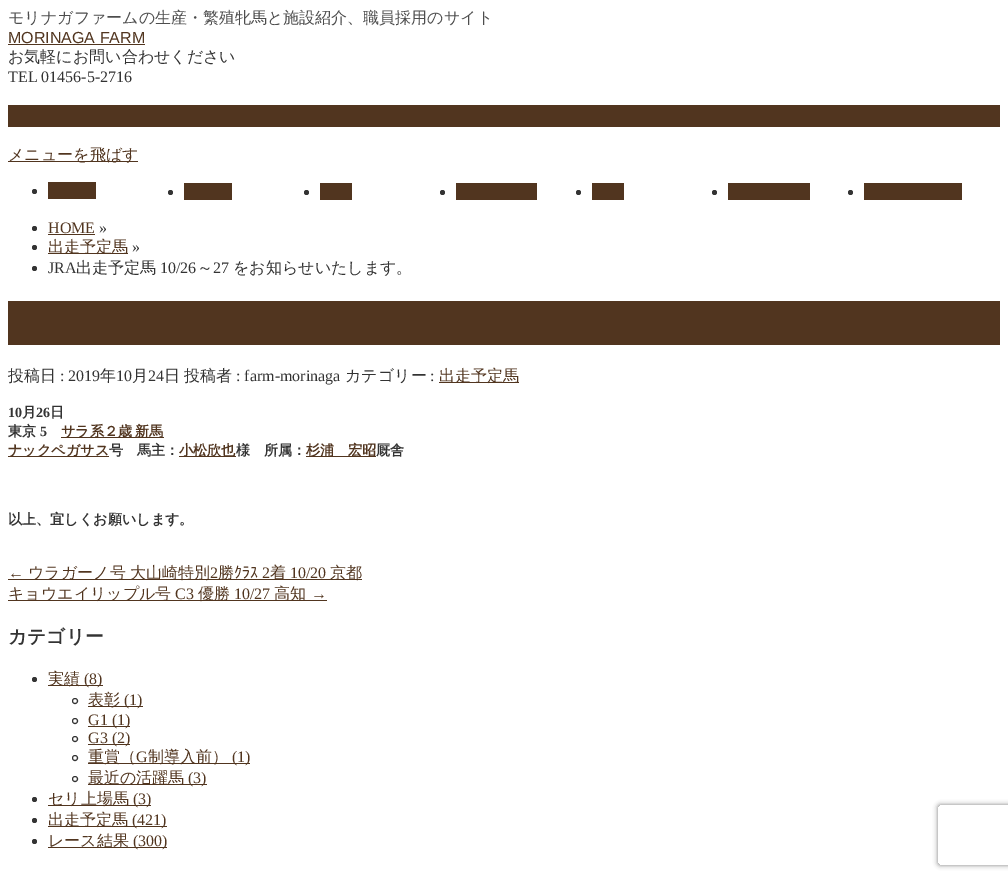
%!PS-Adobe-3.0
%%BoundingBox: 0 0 1008 879
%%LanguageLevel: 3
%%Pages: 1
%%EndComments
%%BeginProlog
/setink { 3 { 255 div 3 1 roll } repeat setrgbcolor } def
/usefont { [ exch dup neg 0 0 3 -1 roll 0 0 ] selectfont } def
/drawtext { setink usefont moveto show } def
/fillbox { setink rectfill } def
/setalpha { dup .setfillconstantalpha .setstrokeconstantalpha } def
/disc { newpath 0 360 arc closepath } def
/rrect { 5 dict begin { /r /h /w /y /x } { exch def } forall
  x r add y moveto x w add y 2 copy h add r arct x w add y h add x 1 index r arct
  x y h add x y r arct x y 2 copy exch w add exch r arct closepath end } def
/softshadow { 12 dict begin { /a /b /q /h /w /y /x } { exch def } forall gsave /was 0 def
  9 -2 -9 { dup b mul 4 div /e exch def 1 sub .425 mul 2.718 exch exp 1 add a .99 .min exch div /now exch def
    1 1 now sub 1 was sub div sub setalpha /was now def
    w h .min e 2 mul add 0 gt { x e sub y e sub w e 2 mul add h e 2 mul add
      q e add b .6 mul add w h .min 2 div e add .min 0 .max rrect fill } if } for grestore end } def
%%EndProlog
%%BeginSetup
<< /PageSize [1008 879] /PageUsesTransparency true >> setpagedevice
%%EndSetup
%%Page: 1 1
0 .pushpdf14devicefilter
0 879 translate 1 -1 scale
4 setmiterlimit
0 0 1008 879 255 255 255 fillbox
(モリナガファームの生産・繁殖牝馬と施設紹介、職員採用のサイト) 8 23 /WenQuanYiZenHei-Medium 16 77 77 77 drawtext
(MORINAGA FARM) 8 43 /LiberationSans-Regular 16 81 53 31 drawtext
8 44 137 1 81 53 31 fillbox
(お気軽にお問い合わせください) 8 62 /WenQuanYiZenHei-Medium 16 51 51 51 drawtext
(TEL 01456-5-2716) 8 82 /LiberationSerif-Regular 16 51 51 51 drawtext
8 105 992 22 81 53 31 fillbox
8 161 130 1 81 53 31 fillbox
(メニューを飛ばす) 8 160 /WenQuanYiZenHei-Medium 16 81 53 31 drawtext
51 51 51 setink
34.5 191.5 2.5 disc fill
48 182 48 17 81 53 31 fillbox
51 51 51 setink
170.5 192.5 2.5 disc fill
184 183 48 17 81 53 31 fillbox
51 51 51 setink
306.5 192.5 2.5 disc fill
320 183 32 17 81 53 31 fillbox
51 51 51 setink
442.5 192.5 2.5 disc fill
456 183 81 17 81 53 31 fillbox
51 51 51 setink
578.5 192.5 2.5 disc fill
592 183 32 17 81 53 31 fillbox
51 51 51 setink
714.5 192.5 2.5 disc fill
728 183 82 17 81 53 31 fillbox
51 51 51 setink
850.5 192.5 2.5 disc fill
864 183 98 17 81 53 31 fillbox
51 51 51 setink
34.5 228.5 2.5 disc fill
(HOME) 48 233 /LiberationSerif-Regular 16 81 53 31 drawtext
48 234 47 1 81 53 31 fillbox
(») 99 233 /LiberationSerif-Regular 16 51 51 51 drawtext
34.5 247.5 2.5 disc fill
48 253 80 1 81 53 31 fillbox
(出走予定馬) 48 252 /WenQuanYiZenHei-Medium 16 81 53 31 drawtext
(») 132 252 /LiberationSerif-Regular 16 51 51 51 drawtext
34.5 268.5 2.5 disc fill
(JRA) 48 273 /LiberationSerif-Regular 16 51 51 51 drawtext
(出走予定馬) 76 273 /WenQuanYiZenHei-Medium 16 51 51 51 drawtext
(10/26) 160 273 /LiberationSerif-Regular 16 51 51 51 drawtext
(～) 197 273 /WenQuanYiZenHei-Medium 16 51 51 51 drawtext
(27) 213 273 /LiberationSerif-Regular 16 51 51 51 drawtext
(をお知らせいたします。) 233 273 /WenQuanYiZenHei-Medium 16 51 51 51 drawtext
8 301 992 44 81 53 31 fillbox
(投稿日) 8 381 /WenQuanYiZenHei-Medium 16 51 51 51 drawtext
(: 2019) 60 381 /LiberationSerif-Regular 16 51 51 51 drawtext
(年) 100 381 /WenQuanYiZenHei-Medium 16 51 51 51 drawtext
(10) 116 381 /LiberationSerif-Regular 16 51 51 51 drawtext
(月) 132 381 /WenQuanYiZenHei-Medium 16 51 51 51 drawtext
(24) 148 381 /LiberationSerif-Regular 16 51 51 51 drawtext
(日) 164 381 /WenQuanYiZenHei-Medium 16 51 51 51 drawtext
(投稿者) 184 381 /WenQuanYiZenHei-Medium 16 51 51 51 drawtext
(: farm-morinaga) 236 381 /LiberationSerif-Regular 16 51 51 51 drawtext
(カテゴリー) 345 381 /WenQuanYiZenHei-Medium 16 51 51 51 drawtext
(:) 430 381 /LiberationSerif-Regular 16 51 51 51 drawtext
439 382 80 1 81 53 31 fillbox
(出走予定馬) 439 381 /WenQuanYiZenHei-Medium 16 81 53 31 drawtext
(10) 8 417 /LiberationSerif-Bold 14.1 51 51 51 drawtext
(月) 22 417 /WenQuanYiZenHei-Bold 14.1 51 51 51 drawtext
(26) 36 417 /LiberationSerif-Bold 14.1 51 51 51 drawtext
(日) 50 417 /WenQuanYiZenHei-Bold 14.1 51 51 51 drawtext
(東京) 8 436 /WenQuanYiZenHei-Bold 14.1 51 51 51 drawtext
(5) 40 436 /LiberationSerif-Bold 14.1 51 51 51 drawtext
61 437 103 1 81 53 31 fillbox
/WenQuanYiZenHei-Bold 14.1 usefont
61 436 moveto -1 0 32 (サラ系２歳 新馬) widthshow
8 456 101 1 81 53 31 fillbox
(ナックペガサス) 8 455 /WenQuanYiZenHei-Bold 14.1 81 53 31 drawtext
(号　馬主：) 109 455 /WenQuanYiZenHei-Bold 14.1 51 51 51 drawtext
179 456 57 1 81 53 31 fillbox
(小松欣也) 179 455 /WenQuanYiZenHei-Bold 14.1 81 53 31 drawtext
(様　所属：) 236 455 /WenQuanYiZenHei-Bold 14.1 51 51 51 drawtext
306 456 70 1 81 53 31 fillbox
(杉浦　宏昭) 306 455 /WenQuanYiZenHei-Bold 14.1 81 53 31 drawtext
(厩舎) 376 455 /WenQuanYiZenHei-Bold 14.1 51 51 51 drawtext
(以上、宜しくお願いします。) 8 524 /WenQuanYiZenHei-Bold 14.1 51 51 51 drawtext
(←) 8 578 /LiberationSerif-Regular 16 81 53 31 drawtext
8 579 354 1 81 53 31 fillbox
(ウラガーノ号 大山崎特別) 28 578 /WenQuanYiZenHei-Medium 16 81 53 31 drawtext
(2) 210 578 /LiberationSerif-Regular 16 81 53 31 drawtext
(勝) 218 578 /WenQuanYiZenHei-Medium 16 81 53 31 drawtext
(ｸﾗｽ) 234 578 /IPAPGothic-Regular 16 81 53 31 drawtext
(2) 262 578 /LiberationSerif-Regular 16 81 53 31 drawtext
(着) 270 578 /WenQuanYiZenHei-Medium 16 81 53 31 drawtext
(10/20) 290 578 /LiberationSerif-Regular 16 81 53 31 drawtext
(京都) 330 578 /WenQuanYiZenHei-Medium 16 81 53 31 drawtext
8 600 319 1 81 53 31 fillbox
(キョウエイリップル号) 8 599 /WenQuanYiZenHei-Medium 16 81 53 31 drawtext
(C3) 175 599 /LiberationSerif-Regular 16 81 53 31 drawtext
(優勝) 198 599 /WenQuanYiZenHei-Medium 16 81 53 31 drawtext
(10/27) 234 599 /LiberationSerif-Regular 16 81 53 31 drawtext
(高知) 274 599 /WenQuanYiZenHei-Medium 16 81 53 31 drawtext
(→) 311 599 /LiberationSerif-Regular 16 81 53 31 drawtext
(カテゴリー) 8 643 /WenQuanYiZenHei-Bold 18.75 51 51 51 drawtext
34.5 679.5 2.5 disc fill
48 685 55 1 81 53 31 fillbox
(実績) 48 684 /WenQuanYiZenHei-Medium 16 81 53 31 drawtext
(\(8\)) 84 684 /LiberationSerif-Regular 16 81 53 31 drawtext
51 51 51 setink
75 701 2.5 disc stroke
88 706 55 1 81 53 31 fillbox
(表彰) 88 705 /WenQuanYiZenHei-Medium 16 81 53 31 drawtext
(\(1\)) 124 705 /LiberationSerif-Regular 16 81 53 31 drawtext
51 51 51 setink
75 721 2.5 disc stroke
88 726 42 1 81 53 31 fillbox
(G1 \(1\)) 88 725 /LiberationSerif-Regular 16 81 53 31 drawtext
51 51 51 setink
75 739 2.5 disc stroke
88 744 42 1 81 53 31 fillbox
(G3 \(2\)) 88 743 /LiberationSerif-Regular 16 81 53 31 drawtext
51 51 51 setink
75 758 2.5 disc stroke
88 763 162 1 81 53 31 fillbox
(重賞（) 88 762 /WenQuanYiZenHei-Medium 16 81 53 31 drawtext
(G) 136 762 /LiberationSerif-Regular 16 81 53 31 drawtext
(制導入前）) 148 762 /WenQuanYiZenHei-Medium 16 81 53 31 drawtext
(\(1\)) 232 762 /LiberationSerif-Regular 16 81 53 31 drawtext
51 51 51 setink
75 779 2.5 disc stroke
88 784 119 1 81 53 31 fillbox
(最近の活躍馬) 88 783 /WenQuanYiZenHei-Medium 16 81 53 31 drawtext
(\(3\)) 188 783 /LiberationSerif-Regular 16 81 53 31 drawtext
51 51 51 setink
34.5 799.5 2.5 disc fill
48 805 103 1 81 53 31 fillbox
(セリ上場馬) 48 804 /WenQuanYiZenHei-Medium 16 81 53 31 drawtext
(\(3\)) 133 804 /LiberationSerif-Regular 16 81 53 31 drawtext
51 51 51 setink
34.5 820.5 2.5 disc fill
48 826 119 1 81 53 31 fillbox
(出走予定馬) 48 825 /WenQuanYiZenHei-Medium 16 81 53 31 drawtext
(\(421\)) 132 825 /LiberationSerif-Regular 16 81 53 31 drawtext
51 51 51 setink
34.5 841.5 2.5 disc fill
48 847 119 1 81 53 31 fillbox
(レース結果) 48 846 /WenQuanYiZenHei-Medium 16 81 53 31 drawtext
(\(300\)) 133 846 /LiberationSerif-Regular 16 81 53 31 drawtext
gsave
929 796 moveto 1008 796 lineto 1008 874 lineto 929 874 lineto closepath 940 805 moveto 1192 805 lineto 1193 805 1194 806 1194 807 curveto 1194 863 lineto 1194 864 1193 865 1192 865 curveto 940 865 lineto 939 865 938 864 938 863 curveto 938 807 lineto 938 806 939 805 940 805 curveto closepath eoclip newpath
128 128 128 setink
938 805 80 60 2 2.5 1 softshadow
grestore
.poppdf14devicefilter showpage
%%EOF
